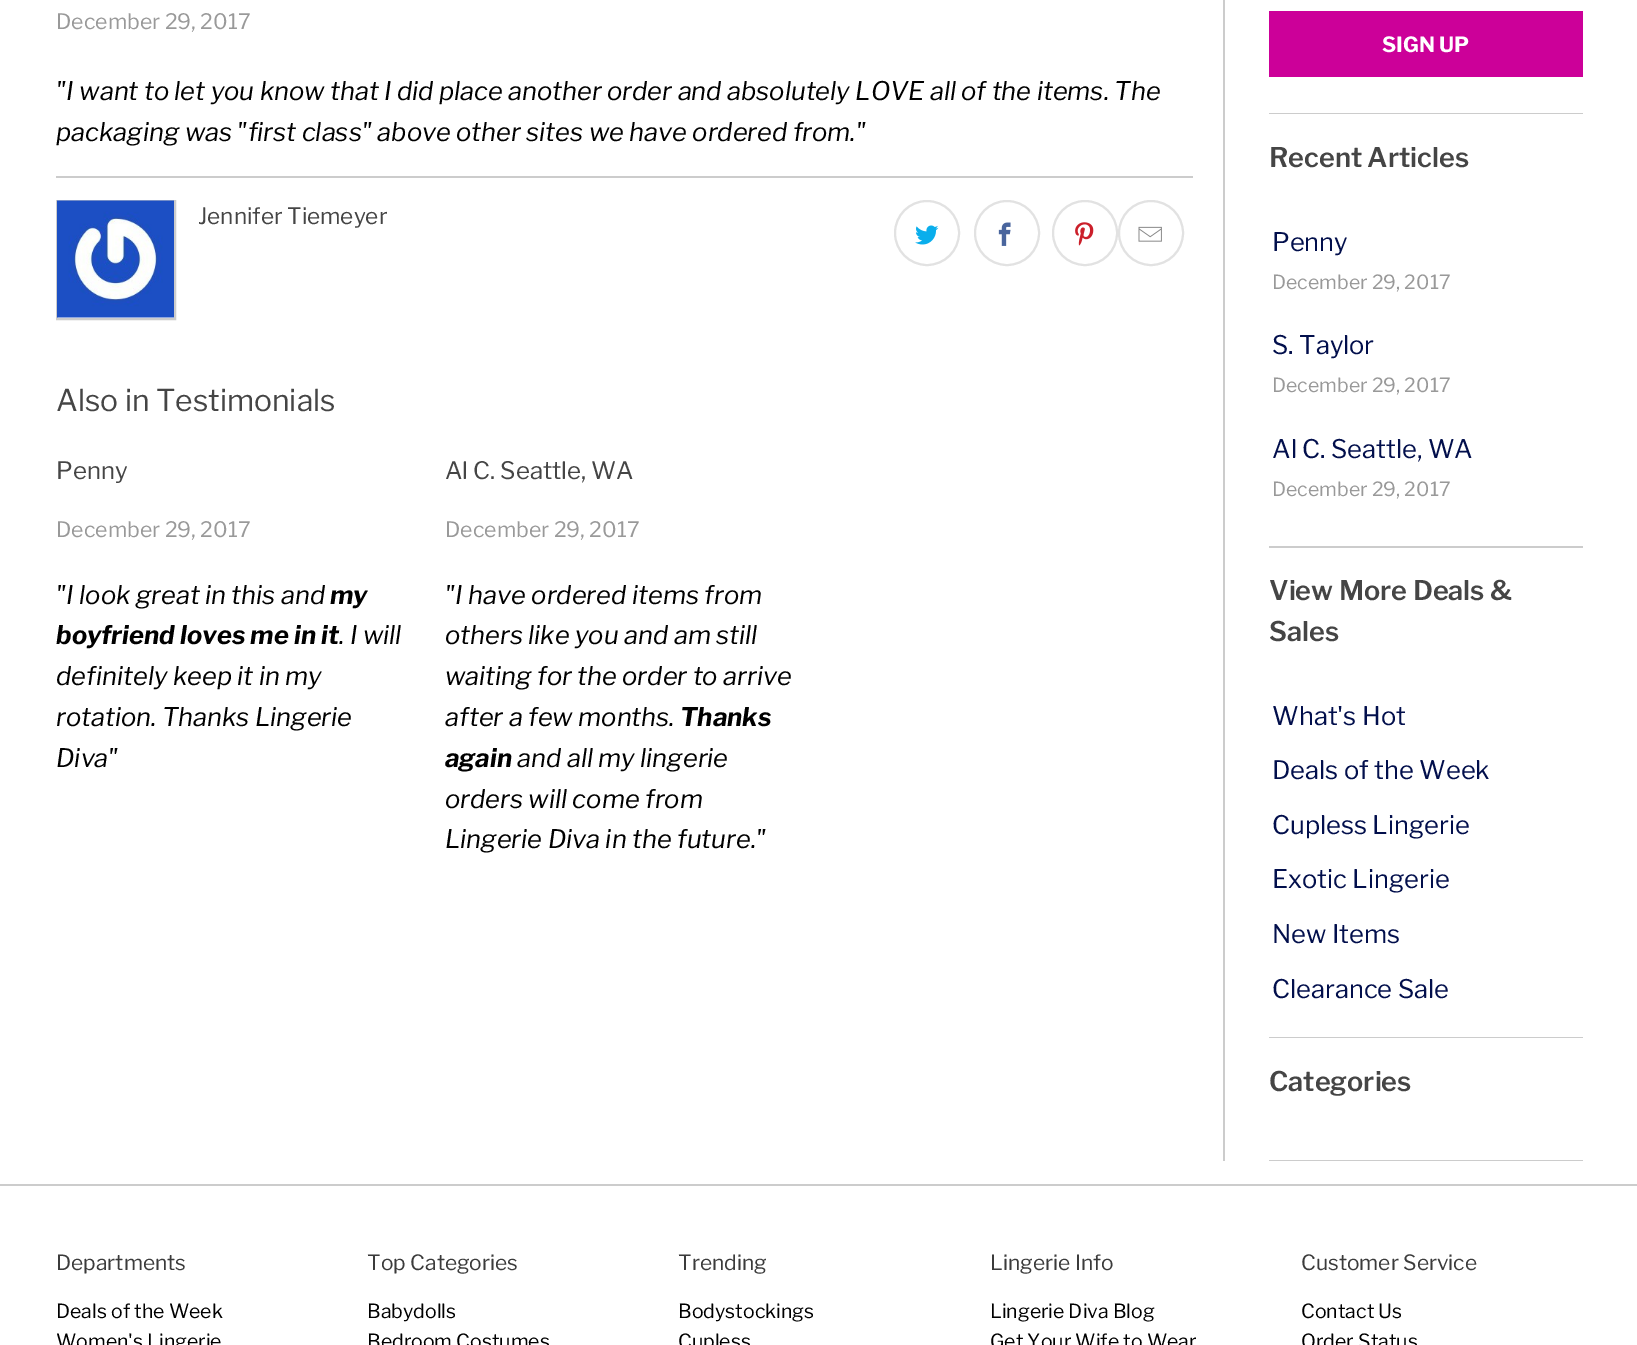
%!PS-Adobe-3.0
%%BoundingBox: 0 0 1637 1345
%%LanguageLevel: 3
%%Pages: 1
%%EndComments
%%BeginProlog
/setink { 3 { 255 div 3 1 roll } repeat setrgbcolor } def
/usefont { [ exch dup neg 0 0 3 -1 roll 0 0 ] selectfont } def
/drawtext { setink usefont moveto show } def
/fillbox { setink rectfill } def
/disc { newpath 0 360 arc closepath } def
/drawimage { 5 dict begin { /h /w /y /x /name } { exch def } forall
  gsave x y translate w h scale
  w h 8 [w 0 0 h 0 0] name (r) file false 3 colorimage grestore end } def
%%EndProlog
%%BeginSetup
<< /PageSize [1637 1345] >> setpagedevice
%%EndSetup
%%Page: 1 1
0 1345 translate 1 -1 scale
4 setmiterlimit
0 0 1637 1345 255 255 255 fillbox
(December 29, 2017) 56 29 /LibreFranklin-Regular 21.25 153 153 153 drawtext
("I want to let you know that I did place another order and absolutely LOVE all of the items. The) 56 100 /LibreFranklin-Italic 25.5 0 0 0 drawtext
(packaging was "first class" above other sites we have ordered from.") 56 141 /LibreFranklin-Italic 25.5 0 0 0 drawtext
56 176 1137 2 204 204 204 fillbox
2 setlinewidth
57 201 118 118 rectstroke
(assets/img1.rgb) 57 200 117 118 drawimage
(Jennifer Tiemeyer) 198 224 /LibreFranklin-Regular 22.5 69 69 69 drawtext
226 226 226 setink
927 233 32 disc stroke
(assets/img2.rgb) 915 225 24 20 drawimage
1007 233 32 disc stroke
(assets/img3.rgb) 998 222 13 24 drawimage
1085 233 32 disc stroke
(assets/img4.rgb) 1075 222 19 24 drawimage
1151 233 32 disc stroke
(assets/img5.rgb) 1138 226 24 16 drawimage
(Also in Testimonials) 56 411 /LibreFranklin-Regular 30 69 69 69 drawtext
(Penny) 56 479 /LibreFranklin-Regular 24 69 69 69 drawtext
(December 29, 2017) 56 537 /LibreFranklin-Regular 21.25 153 153 153 drawtext
("I look great in this and) 56 604 /LibreFranklin-Italic 25.5 0 0 0 drawtext
(my) 330 604 /LibreFranklin-BoldItalic 25.5 0 0 0 drawtext
(boyfriend loves me in it) 56 644 /LibreFranklin-BoldItalic 25.5 0 0 0 drawtext
(. I will) 339 644 /LibreFranklin-Italic 25.5 0 0 0 drawtext
(definitely keep it in my) 56 685 /LibreFranklin-Italic 25.5 0 0 0 drawtext
(rotation. Thanks Lingerie) 56 726 /LibreFranklin-Italic 25.5 0 0 0 drawtext
(Diva") 56 767 /LibreFranklin-Italic 25.5 0 0 0 drawtext
(Al C. Seattle, WA) 445 479 /LibreFranklin-Regular 24 69 69 69 drawtext
(December 29, 2017) 445 537 /LibreFranklin-Regular 21.25 153 153 153 drawtext
("I have ordered items from) 445 604 /LibreFranklin-Italic 25.5 0 0 0 drawtext
(others like you and am still) 445 644 /LibreFranklin-Italic 25.5 0 0 0 drawtext
(waiting for the order to arrive) 445 685 /LibreFranklin-Italic 25.5 0 0 0 drawtext
(after a few months.) 445 726 /LibreFranklin-Italic 25.5 0 0 0 drawtext
(Thanks) 680 726 /LibreFranklin-BoldItalic 25.5 0 0 0 drawtext
(again) 445 767 /LibreFranklin-BoldItalic 25.5 0 0 0 drawtext
(and all my lingerie) 517 767 /LibreFranklin-Italic 25.5 0 0 0 drawtext
(orders will come from) 445 808 /LibreFranklin-Italic 25.5 0 0 0 drawtext
(Lingerie Diva in the future.") 445 848 /LibreFranklin-Italic 25.5 0 0 0 drawtext
1223 0 2 1161 204 204 204 fillbox
1269 11 314 66 204 0 153 fillbox
(SIGN UP) 1382 52 /LibreFranklin-Bold 21 255 255 255 drawtext
1269 113 314 1 204 204 204 fillbox
(Recent Articles) 1269 167 /LibreFranklin-SemiBold 27 69 69 69 drawtext
(Penny) 1272 251 /LibreFranklin-Regular 25.5 2 15 76 drawtext
(December 29, 2017) 1272 289 /LibreFranklin-Regular 19.5 153 153 153 drawtext
(S. Taylor) 1272 354 /LibreFranklin-Regular 25.5 2 15 76 drawtext
(December 29, 2017) 1272 392 /LibreFranklin-Regular 19.5 153 153 153 drawtext
(Al C. Seattle, WA) 1272 458 /LibreFranklin-Regular 25.5 2 15 76 drawtext
(December 29, 2017) 1272 496 /LibreFranklin-Regular 19.5 153 153 153 drawtext
1269 546 314 2 204 204 204 fillbox
(View More Deals &) 1269 600 /LibreFranklin-SemiBold 27 69 69 69 drawtext
(Sales) 1269 641 /LibreFranklin-SemiBold 27 69 69 69 drawtext
(What's Hot) 1272 725 /LibreFranklin-Regular 25.5 2 15 76 drawtext
(Deals of the Week) 1272 779 /LibreFranklin-Regular 25.5 2 15 76 drawtext
(Cupless Lingerie) 1272 834 /LibreFranklin-Regular 25.5 2 15 76 drawtext
(Exotic Lingerie) 1272 888 /LibreFranklin-Regular 25.5 2 15 76 drawtext
(New Items) 1272 943 /LibreFranklin-Regular 25.5 2 15 76 drawtext
(Clearance Sale) 1272 998 /LibreFranklin-Regular 25.5 2 15 76 drawtext
1269 1037 314 1 204 204 204 fillbox
(Categories) 1269 1091 /LibreFranklin-SemiBold 27 69 69 69 drawtext
1269 1160 314 1 204 204 204 fillbox
0 1184 1637 2 204 204 204 fillbox
(Departments) 56 1270 /LibreFranklin-Regular 21 59 59 59 drawtext
(Deals of the Week) 56 1318 /LibreFranklin-Regular 19.5 0 0 0 drawtext
(Women's Lingerie) 56 1348 /LibreFranklin-Regular 19.5 0 0 0 drawtext
(Top Categories) 367 1270 /LibreFranklin-Regular 21 59 59 59 drawtext
(Babydolls) 367 1318 /LibreFranklin-Regular 19.5 0 0 0 drawtext
(Bedroom Costumes) 367 1348 /LibreFranklin-Regular 19.5 0 0 0 drawtext
(Trending) 678 1270 /LibreFranklin-Regular 21 59 59 59 drawtext
(Bodystockings) 678 1318 /LibreFranklin-Regular 19.5 0 0 0 drawtext
(Cupless) 678 1348 /LibreFranklin-Regular 19.5 0 0 0 drawtext
(Lingerie Info) 990 1270 /LibreFranklin-Regular 21 59 59 59 drawtext
(Lingerie Diva Blog) 990 1318 /LibreFranklin-Regular 19.5 0 0 0 drawtext
(Get Your Wife to Wear) 990 1348 /LibreFranklin-Regular 19.5 0 0 0 drawtext
(Customer Service) 1301 1270 /LibreFranklin-Regular 21 59 59 59 drawtext
(Contact Us) 1301 1318 /LibreFranklin-Regular 19.5 0 0 0 drawtext
(Order Status) 1301 1348 /LibreFranklin-Regular 19.5 0 0 0 drawtext
showpage
%%EOF
